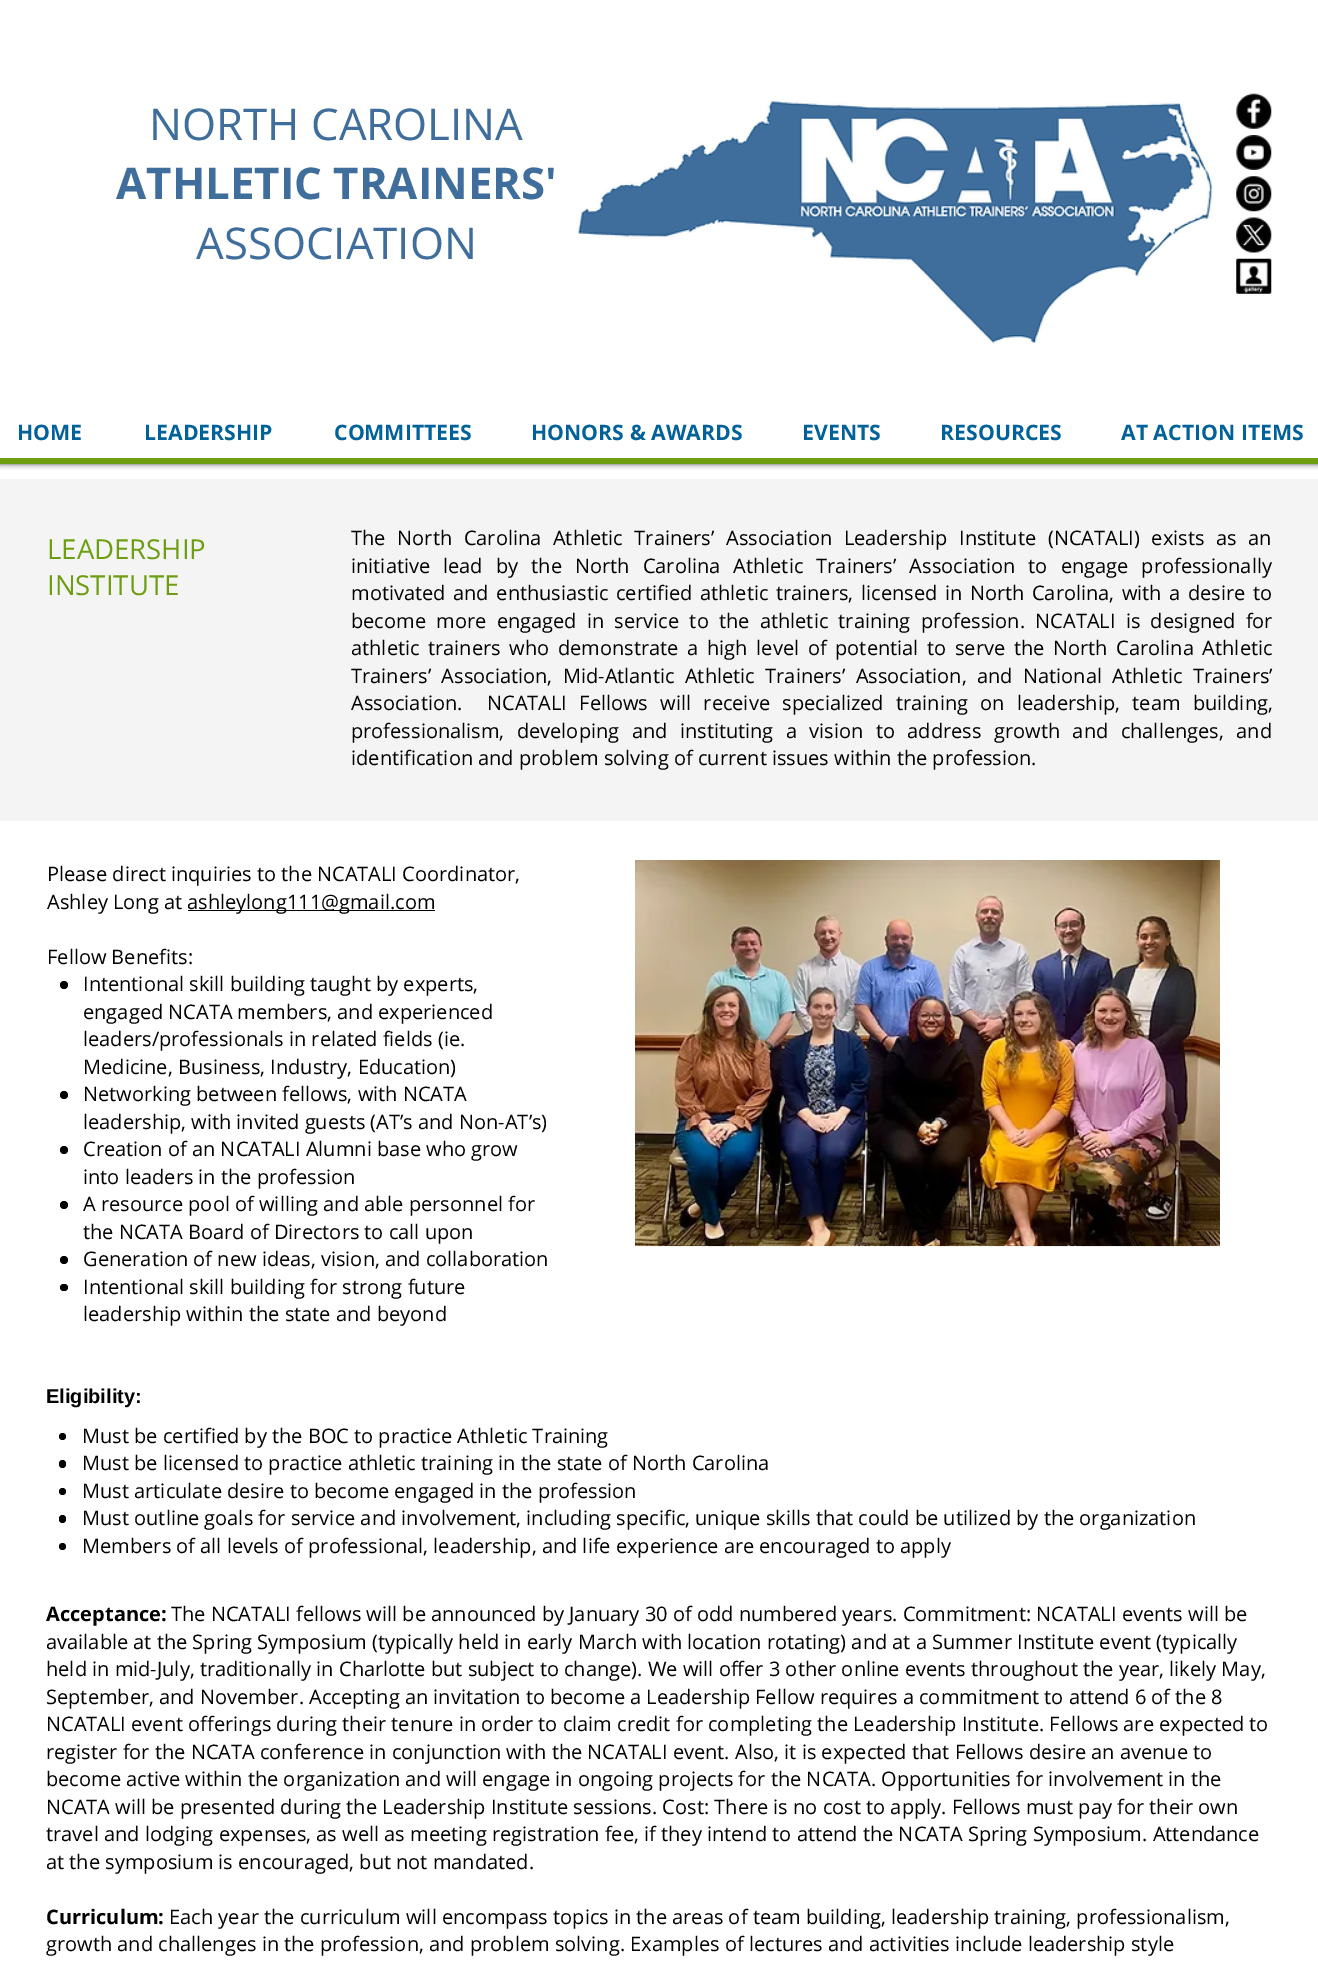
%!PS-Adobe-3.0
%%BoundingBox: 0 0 1318 1968
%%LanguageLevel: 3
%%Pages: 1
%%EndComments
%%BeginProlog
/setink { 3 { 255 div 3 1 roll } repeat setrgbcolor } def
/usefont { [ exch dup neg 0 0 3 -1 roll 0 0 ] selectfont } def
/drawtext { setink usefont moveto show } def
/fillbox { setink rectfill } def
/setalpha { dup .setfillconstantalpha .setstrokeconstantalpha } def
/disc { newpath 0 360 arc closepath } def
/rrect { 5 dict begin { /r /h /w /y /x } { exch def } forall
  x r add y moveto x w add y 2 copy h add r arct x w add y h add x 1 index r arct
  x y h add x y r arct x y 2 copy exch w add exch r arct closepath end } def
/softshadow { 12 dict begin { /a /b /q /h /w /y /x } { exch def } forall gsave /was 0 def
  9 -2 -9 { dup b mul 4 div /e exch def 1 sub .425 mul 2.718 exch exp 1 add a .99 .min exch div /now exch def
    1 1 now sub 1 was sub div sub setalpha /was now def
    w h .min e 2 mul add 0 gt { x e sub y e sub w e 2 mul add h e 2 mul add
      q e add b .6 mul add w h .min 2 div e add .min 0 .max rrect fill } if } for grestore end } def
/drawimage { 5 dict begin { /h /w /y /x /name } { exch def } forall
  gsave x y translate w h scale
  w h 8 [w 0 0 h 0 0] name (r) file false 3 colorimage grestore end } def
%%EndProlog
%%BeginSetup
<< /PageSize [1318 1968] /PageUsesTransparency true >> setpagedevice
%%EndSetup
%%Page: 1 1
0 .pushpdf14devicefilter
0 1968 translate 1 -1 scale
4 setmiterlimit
0 0 1318 1968 255 255 255 fillbox
gsave
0 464 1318 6 rectclip
0 0 0 setink
0 0 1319 464 0 3 0.7 softshadow
grestore
0 458 1318 6 109 158 17 fillbox
(NORTH CAROLINA) 149 140 /OpenSans-Regular 43.75 63 110 156 drawtext
(ATHLETIC TRAINERS') 116 199 /OpenSans-Bold 43.75 63 110 156 drawtext
(ASSOCIATION) 196 259 /OpenSans-Regular 43.75 63 110 156 drawtext
(assets/img1.rgb) 553 99 660 246 drawimage
(assets/img2.rgb) 1236 93 36 36 drawimage
(assets/img3.rgb) 1236 135 36 35 drawimage
(assets/img4.rgb) 1236 176 36 36 drawimage
(assets/img5.rgb) 1236 217 36 36 drawimage
(assets/img6.rgb) 1236 258 36 36 drawimage
(HOME) 17 440 /OpenSans-Bold 21.25 0 98 152 drawtext
(LEADERSHIP) 144 440 /OpenSans-Bold 21.25 0 98 152 drawtext
(COMMITTEES) 334 440 /OpenSans-Bold 21.25 0 98 152 drawtext
(HONORS & AWARDS) 531 440 /OpenSans-Bold 21.25 0 98 152 drawtext
(EVENTS) 802 440 /OpenSans-Bold 21.25 0 98 152 drawtext
(RESOURCES) 940 440 /OpenSans-Bold 21.25 0 98 152 drawtext
(AT ACTION ITEMS) 1121 440 /OpenSans-Bold 21.25 0 98 152 drawtext
0 479 1318 342 244 244 244 fillbox
(LEADERSHIP) 47 559 /OpenSans-Regular 27.5 109 158 17 drawtext
(INSTITUTE) 47 595 /OpenSans-Regular 27.5 109 158 17 drawtext
/OpenSans-Regular 20 usefont
0 0 0 setink
351 545 moveto 6.5 0 32 (The North Carolina Athletic Trainers’ Association Leadership Institute \(NCATALI\) exists as an) widthshow
351 573 moveto 7.9 0 32 (initiative lead by the North Carolina Athletic Trainers’ Association to engage professionally) widthshow
351 600 moveto 2.4 0 32 (motivated and enthusiastic certified athletic trainers, licensed in North Carolina, with a desire to) widthshow
351 628 moveto 5.1 0 32 (become more engaged in service to the athletic training profession. NCATALI is designed for) widthshow
351 655 moveto 3.5 0 32 (athletic trainers who demonstrate a high level of potential to serve the North Carolina Athletic) widthshow
351 683 moveto 5.25 0 32 (Trainers’ Association, Mid-Atlantic Athletic Trainers’ Association, and National Athletic Trainers’) widthshow
351 710 moveto 7.1 0 32 (Association.  NCATALI Fellows will receive specialized training on leadership, team building,) widthshow
351 738 moveto 7.25 0 32 (professionalism, developing and instituting a vision to address growth and challenges, and) widthshow
(identification and problem solving of current issues within the profession.) 351 765 /OpenSans-Regular 20 0 0 0 drawtext
(Please direct inquiries to the NCATALI Coordinator,) 47 881 /OpenSans-Regular 20 0 0 0 drawtext
(Ashley Long at) 47 909 /OpenSans-Regular 20 0 0 0 drawtext
188 910 247 1 0 0 0 fillbox
(ashleylong111@gmail.com) 187 909 /OpenSans-Regular 20 0 0 0 drawtext
(Fellow Benefits:) 47 964 /OpenSans-Regular 20 0 0 0 drawtext
64 985 4 disc fill
(Intentional skill building taught by experts,) 83 991 /OpenSans-Regular 20 0 0 0 drawtext
(engaged NCATA members, and experienced) 83 1019 /OpenSans-Regular 20 0 0 0 drawtext
(leaders/professionals in related fields \(ie.) 83 1046 /OpenSans-Regular 20 0 0 0 drawtext
(Medicine, Business, Industry, Education\)) 83 1074 /OpenSans-Regular 20 0 0 0 drawtext
64 1095 4 disc fill
(Networking between fellows, with NCATA) 83 1101 /OpenSans-Regular 20 0 0 0 drawtext
(leadership, with invited guests \(AT’s and Non-AT’s\)) 83 1129 /OpenSans-Regular 20 0 0 0 drawtext
64 1150 4 disc fill
(Creation of an NCATALI Alumni base who grow) 83 1156 /OpenSans-Regular 20 0 0 0 drawtext
(into leaders in the profession) 83 1184 /OpenSans-Regular 20 0 0 0 drawtext
64 1205 4 disc fill
(A resource pool of willing and able personnel for) 83 1211 /OpenSans-Regular 20 0 0 0 drawtext
(the NCATA Board of Directors to call upon) 83 1239 /OpenSans-Regular 20 0 0 0 drawtext
64 1260 4 disc fill
(Generation of new ideas, vision, and collaboration) 83 1266 /OpenSans-Regular 20 0 0 0 drawtext
60 1284 8 7 3.5 rrect fill
(Intentional skill building for strong future) 83 1294 /OpenSans-Regular 20 0 0 0 drawtext
(leadership within the state and beyond) 83 1321 /OpenSans-Regular 20 0 0 0 drawtext
(assets/img7.rgb) 635 860 585 387 drawimage
(Eligibility:) 46 1403 /LiberationSans-Bold 20 0 0 0 drawtext
62.5 1436.5 3.5 disc fill
(Must be certified by the BOC to practice Athletic Training) 82 1443 /OpenSans-Regular 20 0 0 0 drawtext
59 1460 7 8 3.5 rrect fill
(Must be licensed to practice athletic training in the state of North Carolina) 82 1470 /OpenSans-Regular 20 0 0 0 drawtext
62.5 1491.5 3.5 disc fill
(Must articulate desire to become engaged in the profession) 82 1498 /OpenSans-Regular 20 0 0 0 drawtext
59 1515 7 8 3.5 rrect fill
(Must outline goals for service and involvement, including specific, unique skills that could be utilized by the organization) 82 1525 /OpenSans-Regular 20 0 0 0 drawtext
62.5 1546.5 3.5 disc fill
(Members of all levels of professional, leadership, and life experience are encouraged to apply) 82 1553 /OpenSans-Regular 20 0 0 0 drawtext
(Acceptance:) 46 1621 /OpenSans-Bold 20 0 0 0 drawtext
(The NCATALI fellows will be announced by January 30 of odd numbered years. Commitment: NCATALI events will be) 171 1621 /OpenSans-Regular 20 0 0 0 drawtext
(available at the Spring Symposium \(typically held in early March with location rotating\) and at a Summer Institute event \(typically) 46 1649 /OpenSans-Regular 20 0 0 0 drawtext
(held in mid-July, traditionally in Charlotte but subject to change\). We will offer 3 other online events throughout the year, likely May,) 46 1676 /OpenSans-Regular 20 0 0 0 drawtext
(September, and November. Accepting an invitation to become a Leadership Fellow requires a commitment to attend 6 of the 8) 46 1704 /OpenSans-Regular 20 0 0 0 drawtext
(NCATALI event offerings during their tenure in order to claim credit for completing the Leadership Institute. Fellows are expected to) 46 1731 /OpenSans-Regular 20 0 0 0 drawtext
(register for the NCATA conference in conjunction with the NCATALI event. Also, it is expected that Fellows desire an avenue to) 46 1759 /OpenSans-Regular 20 0 0 0 drawtext
(become active within the organization and will engage in ongoing projects for the NCATA. Opportunities for involvement in the) 46 1786 /OpenSans-Regular 20 0 0 0 drawtext
(NCATA will be presented during the Leadership Institute sessions. Cost: There is no cost to apply. Fellows must pay for their own) 46 1814 /OpenSans-Regular 20 0 0 0 drawtext
(travel and lodging expenses, as well as meeting registration fee, if they intend to attend the NCATA Spring Symposium. Attendance) 46 1841 /OpenSans-Regular 20 0 0 0 drawtext
(at the symposium is encouraged, but not mandated.) 46 1869 /OpenSans-Regular 20 0 0 0 drawtext
(Curriculum:) 46 1924 /OpenSans-Bold 20 0 0 0 drawtext
(Each year the curriculum will encompass topics in the areas of team building, leadership training, professionalism,) 169 1924 /OpenSans-Regular 20 0 0 0 drawtext
(growth and challenges in the profession, and problem solving. Examples of lectures and activities include leadership style) 46 1951 /OpenSans-Regular 20 0 0 0 drawtext
.poppdf14devicefilter showpage
%%EOF
